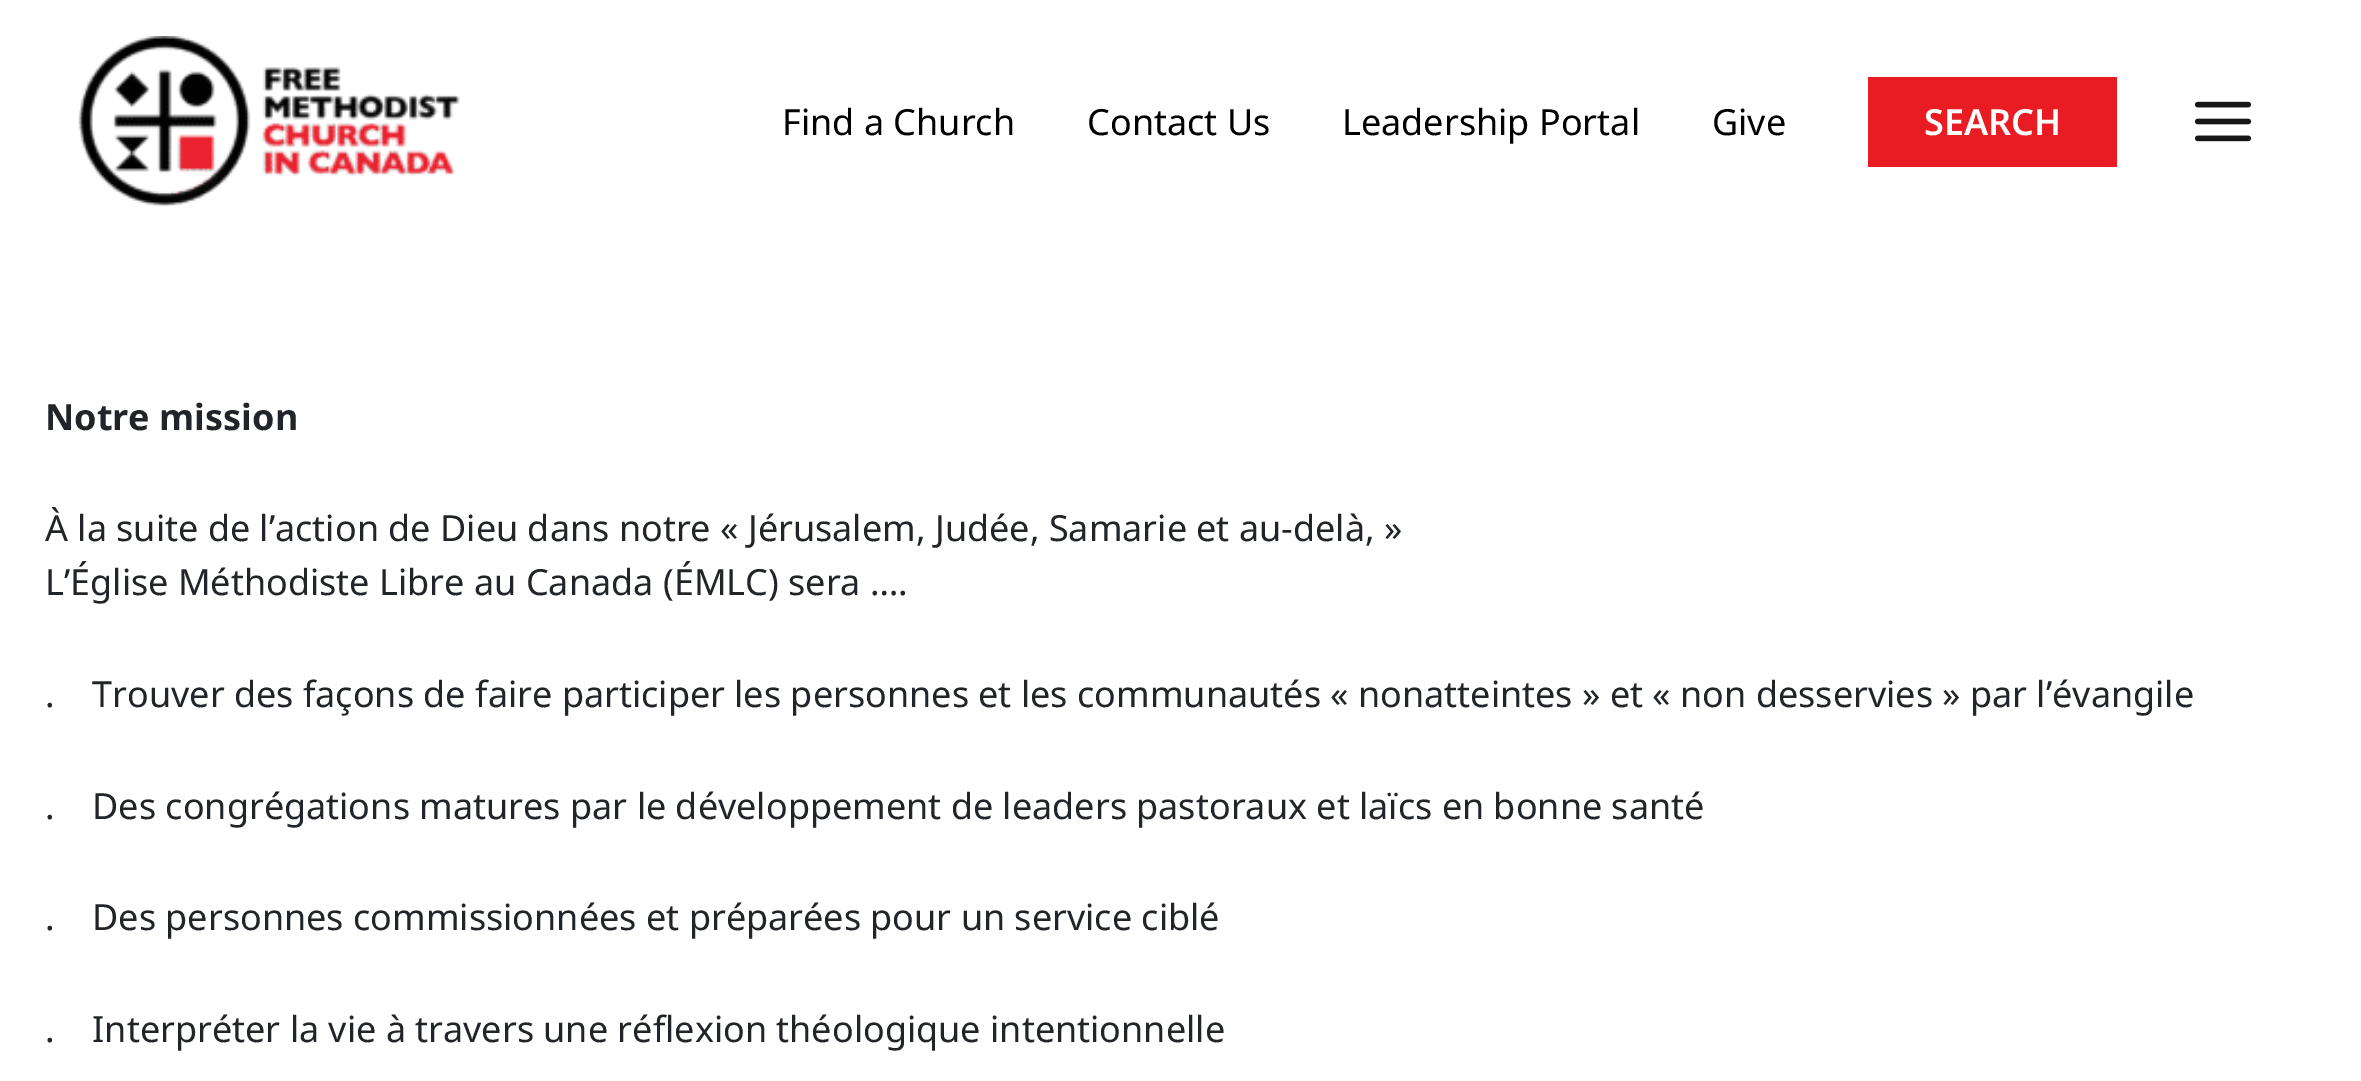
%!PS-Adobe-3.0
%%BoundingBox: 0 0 2361 1081
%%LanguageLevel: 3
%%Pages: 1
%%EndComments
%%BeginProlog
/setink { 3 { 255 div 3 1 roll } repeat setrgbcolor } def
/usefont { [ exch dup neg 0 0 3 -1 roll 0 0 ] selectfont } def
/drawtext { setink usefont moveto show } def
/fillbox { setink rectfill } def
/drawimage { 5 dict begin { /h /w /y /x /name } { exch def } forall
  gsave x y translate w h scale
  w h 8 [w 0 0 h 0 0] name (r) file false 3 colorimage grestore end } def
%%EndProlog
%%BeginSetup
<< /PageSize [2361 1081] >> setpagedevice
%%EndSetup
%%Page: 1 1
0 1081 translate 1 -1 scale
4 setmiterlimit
0 0 2361 1081 255 255 255 fillbox
(assets/img1.rgb) 78 36 382 171 drawimage
(Find a Church) 782 135 /NotoSans-Regular 36 0 0 0 drawtext
(Contact Us) 1087 135 /NotoSans-Regular 36 0 0 0 drawtext
(Leadership Portal) 1342 135 /NotoSans-Regular 36 0 0 0 drawtext
(Give) 1712 135 /NotoSans-Regular 36 0 0 0 drawtext
1868 77 249 90 233 28 35 fillbox
(SEARCH) 1924 135 /NotoSans-SemiBold 36 255 255 255 drawtext
(assets/img2.rgb) 2194 101 58 41 drawimage
(Notre mission) 45 430 /NotoSans-Bold 36 33 37 41 drawtext
(À la suite de l’action de Dieu dans notre « Jérusalem, Judée, Samarie et au-delà, ») 45 541 /NotoSans-Regular 36 33 37 41 drawtext
(L’Église Méthodiste Libre au Canada \(ÉMLC\) sera ….) 45 595 /NotoSans-Regular 36 33 37 41 drawtext
(.    Trouver des façons de faire participer les personnes et les communautés « nonatteintes » et « non desservies » par l’évangile) 45 707 /NotoSans-Regular 36 33 37 41 drawtext
(.    Des congrégations matures par le développement de leaders pastoraux et laïcs en bonne santé) 45 819 /NotoSans-Regular 36 33 37 41 drawtext
(.    Des personnes commissionnées et préparées pour un service ciblé) 45 930 /NotoSans-Regular 36 33 37 41 drawtext
(.    Interpréter la vie à travers une réflexion théologique intentionnelle) 45 1042 /NotoSans-Regular 36 33 37 41 drawtext
showpage
%%EOF
